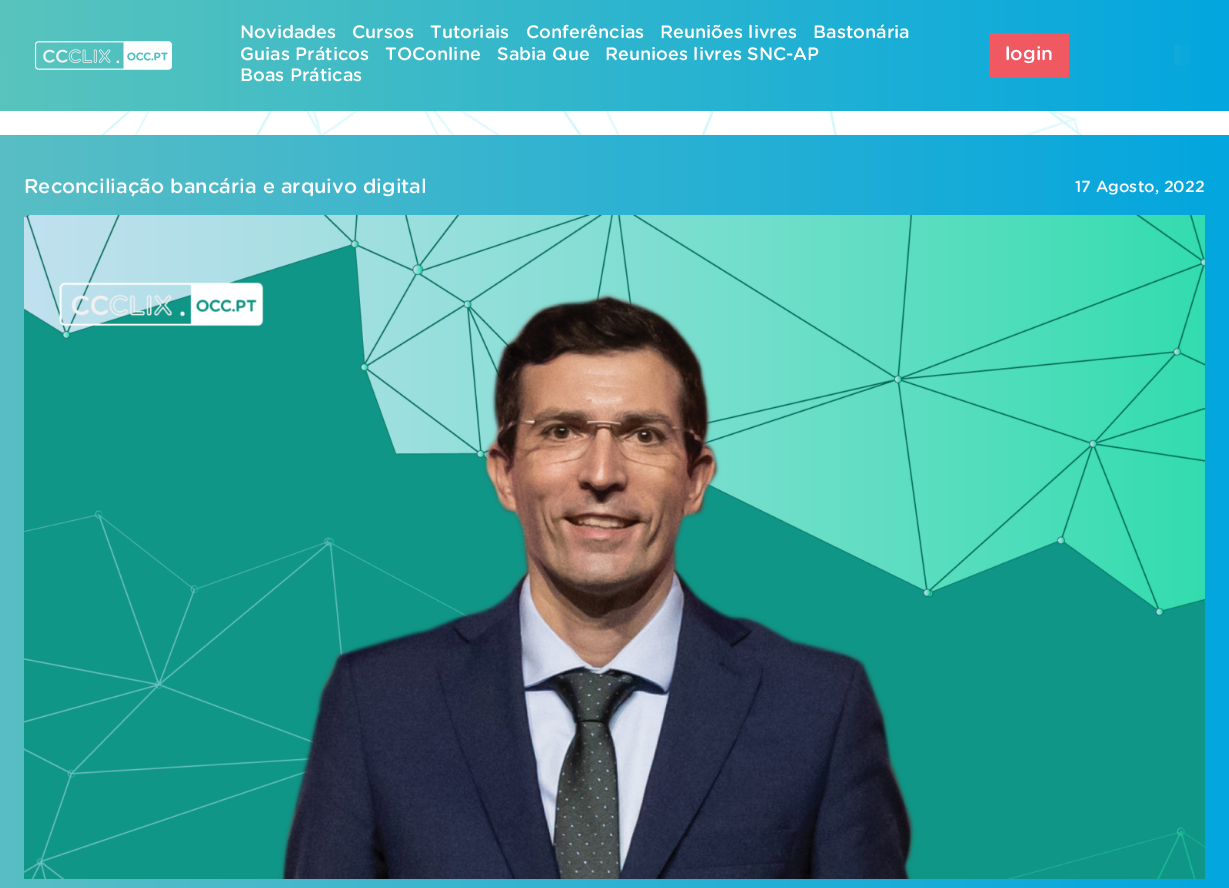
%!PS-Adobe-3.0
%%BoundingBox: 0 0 1229 888
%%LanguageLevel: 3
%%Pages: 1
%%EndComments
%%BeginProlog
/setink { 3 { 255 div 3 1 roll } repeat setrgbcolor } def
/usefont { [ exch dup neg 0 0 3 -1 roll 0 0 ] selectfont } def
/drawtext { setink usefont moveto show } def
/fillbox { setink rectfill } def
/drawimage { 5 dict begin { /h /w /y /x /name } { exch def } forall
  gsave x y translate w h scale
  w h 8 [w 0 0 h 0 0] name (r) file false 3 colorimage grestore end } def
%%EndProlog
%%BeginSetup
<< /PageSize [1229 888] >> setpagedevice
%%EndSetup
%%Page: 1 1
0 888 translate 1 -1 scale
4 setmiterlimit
0 0 1229 888 255 255 255 fillbox
gsave 0 0 moveto 1229 0 lineto 1229 111 lineto 0 111 lineto closepath clip newpath
<< /ShadingType 2 /ColorSpace /DeviceRGB /Coords [0 56 1229 55] /Extend [true true] /Function << /FunctionType 2 /Domain [0 1] /C0 [0.349 0.769 0.741] /C1 [0.012 0.651 0.875] /N 1 >> >> shfill grestore
(assets/img1.rgb) 35 41 137 29 drawimage
(Novidades) 240 38 /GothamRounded-Medium 18 255 255 255 drawtext
(Cursos) 352 38 /GothamRounded-Medium 18 255 255 255 drawtext
(Tutoriais) 430 38 /GothamRounded-Medium 18 255 255 255 drawtext
(Conferências) 526 38 /GothamRounded-Medium 18 255 255 255 drawtext
(Reuniões livres) 660 38 /GothamRounded-Medium 18 255 255 255 drawtext
(Bastonária) 813 38 /GothamRounded-Medium 18 255 255 255 drawtext
(Guias Práticos) 240 60 /GothamRounded-Medium 18 255 255 255 drawtext
(TOConline) 385 60 /GothamRounded-Medium 18 255 255 255 drawtext
(Sabia Que) 497 60 /GothamRounded-Medium 18 255 255 255 drawtext
(Reunioes livres SNC-AP) 605 60 /GothamRounded-Medium 18 255 255 255 drawtext
(Boas Práticas) 240 81 /GothamRounded-Medium 18 255 255 255 drawtext
989 33 80 45 240 88 98 fillbox
(login) 1005 60 /GothamRounded-Medium 19 255 255 255 drawtext
gsave 1174 45 moveto 1190 45 lineto 1190 65 lineto 1174 65 lineto closepath clip newpath
<< /ShadingType 2 /ColorSpace /DeviceRGB /Coords [1174 55 1194 55] /Extend [true true] /Function << /FunctionType 2 /Domain [0 1] /C0 [0.075 0.667 0.855] /C1 [0.024 0.655 0.871] /N 1 >> >> shfill grestore
gsave 0 135 moveto 1229 135 lineto 1229 888 lineto 0 888 lineto closepath clip newpath
<< /ShadingType 2 /ColorSpace /DeviceRGB /Coords [0 523 1229 523] /Extend [true true] /Function << /FunctionType 2 /Domain [0 1] /C0 [0.349 0.745 0.769] /C1 [0.012 0.651 0.875] /N 1 >> >> shfill grestore
(Reconciliação bancária e arquivo digital) 24 193 /GothamRounded-Medium 20 248 249 250 drawtext
(17 Agosto, 2022) 1075 192 /GothamRounded-Medium 16 248 249 250 drawtext
(assets/img2.rgb) 24 215 1181 664 drawimage
(assets/img3.rgb) 101 111 982 24 drawimage
showpage
%%EOF
